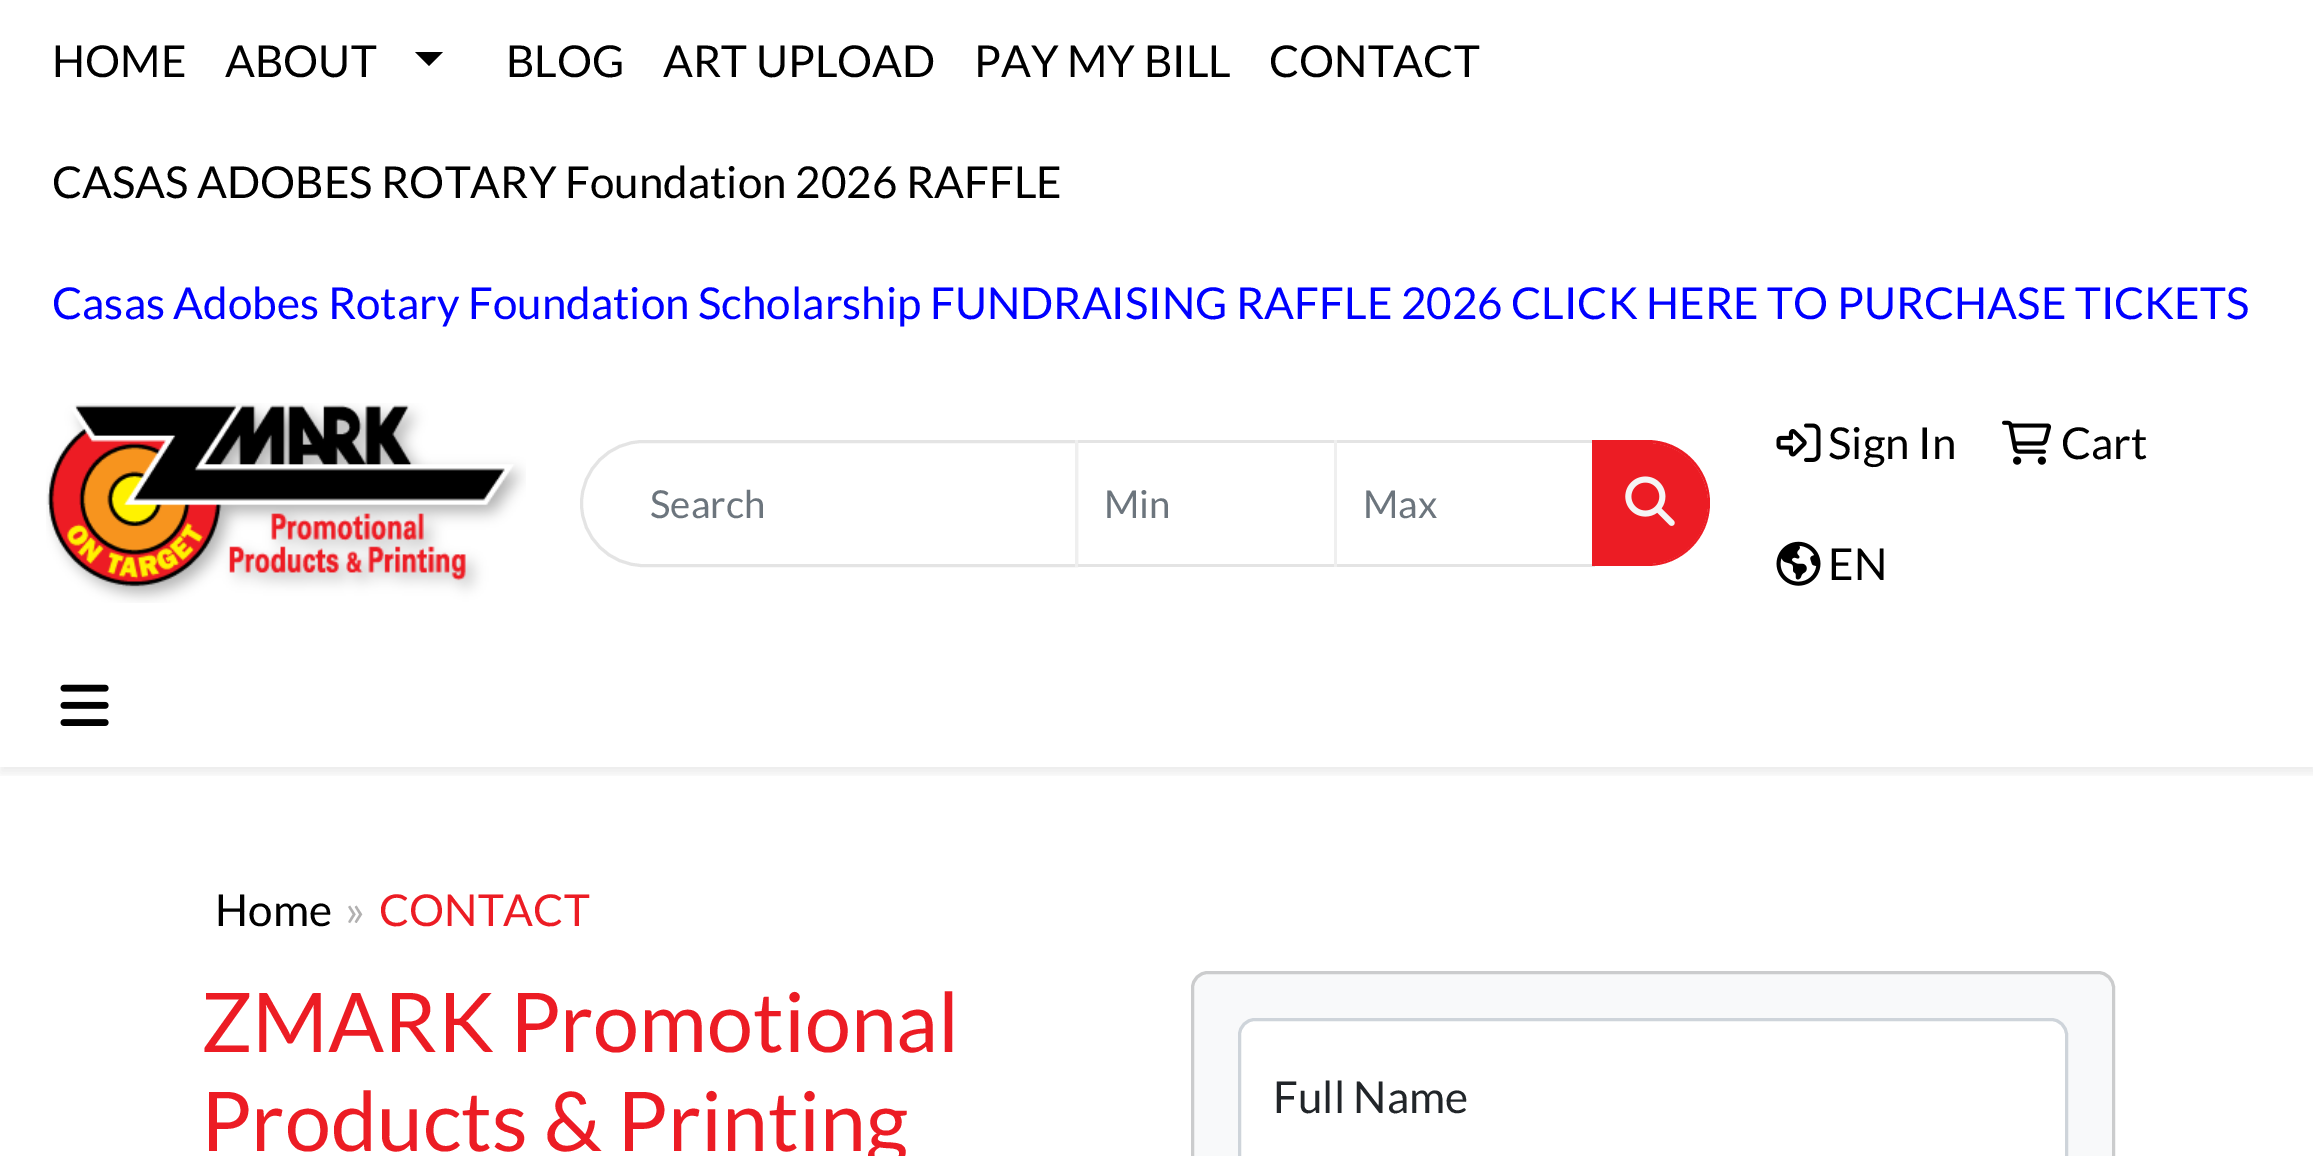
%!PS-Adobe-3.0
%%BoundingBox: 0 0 2313 1156
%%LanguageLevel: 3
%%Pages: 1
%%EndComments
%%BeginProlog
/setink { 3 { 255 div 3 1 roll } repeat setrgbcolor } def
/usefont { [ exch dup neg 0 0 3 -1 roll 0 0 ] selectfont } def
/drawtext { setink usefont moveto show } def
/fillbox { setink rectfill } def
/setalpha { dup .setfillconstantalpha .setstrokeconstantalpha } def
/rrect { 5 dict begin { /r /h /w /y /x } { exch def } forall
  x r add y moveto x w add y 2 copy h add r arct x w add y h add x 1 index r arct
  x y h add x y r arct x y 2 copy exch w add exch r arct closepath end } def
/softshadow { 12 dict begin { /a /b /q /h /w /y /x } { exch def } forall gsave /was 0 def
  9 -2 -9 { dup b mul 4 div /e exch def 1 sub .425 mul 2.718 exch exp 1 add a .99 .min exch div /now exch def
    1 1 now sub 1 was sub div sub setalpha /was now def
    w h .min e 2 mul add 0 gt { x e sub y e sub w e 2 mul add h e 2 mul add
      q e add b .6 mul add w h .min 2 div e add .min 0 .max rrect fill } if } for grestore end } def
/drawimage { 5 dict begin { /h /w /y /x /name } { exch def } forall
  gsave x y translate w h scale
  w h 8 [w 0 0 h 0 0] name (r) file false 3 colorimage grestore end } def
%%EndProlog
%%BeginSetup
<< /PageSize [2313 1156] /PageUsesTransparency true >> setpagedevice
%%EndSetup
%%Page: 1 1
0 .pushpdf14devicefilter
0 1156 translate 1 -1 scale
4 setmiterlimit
0 0 2313 1156 255 255 255 fillbox
(HOME) 52 77 /Lato-Regular 44 0 0 0 drawtext
(ABOUT) 225 77 /Lato-Regular 44 0 0 0 drawtext
415 52 moveto 443 52 lineto 429 66 lineto closepath fill
(BLOG) 506 77 /Lato-Regular 44 0 0 0 drawtext
(ART UPLOAD) 663 77 /Lato-Regular 44 0 0 0 drawtext
(PAY MY BILL) 974 77 /Lato-Regular 44 0 0 0 drawtext
(CONTACT) 1269 77 /Lato-Regular 44 0 0 0 drawtext
(CASAS ADOBES ROTARY Foundation 2026 RAFFLE) 52 198 /Lato-Regular 44 0 0 0 drawtext
(Casas Adobes Rotary Foundation Scholarship FUNDRAISING RAFFLE 2026 CLICK HERE TO PURCHASE TICKETS) 52 319 /Lato-Regular 44 0 0 255 drawtext
(assets/img1.rgb) 46 403 480 200 drawimage
228 228 228 setink
3 setlinewidth
643.5 441.5 moveto 1076.5 441.5 lineto 1076.5 565.5 lineto 643.5 565.5 lineto 609.5 565.5 581.5 537.5 581.5 503.5 curveto 581.5 469.5 609.5 441.5 643.5 441.5 curveto closepath stroke
(Search) 650 518 /Lato-Regular 38.5 108 117 125 drawtext
1075 440 520 3 228 228 228 fillbox
1075 564 520 3 228 228 228 fillbox
1075 440 3 127 239 239 239 fillbox
(Min) 1104 518 /Lato-Regular 38.5 108 117 125 drawtext
1334 440 3 127 239 239 239 fillbox
(Max) 1363 518 /Lato-Regular 38.5 108 117 125 drawtext
236 28 36 setink
1592 443 moveto 1647.5 443 lineto 1681 443 1708 470 1708 503.5 curveto 1708 537 1681 564 1647.5 564 curveto 1592 564 lineto closepath fill
1592 440 moveto 1647 440 lineto 1682 440 1710 468 1710 503 curveto 1710 538 1682 566 1647 566 curveto 1592 566 lineto closepath 1592 443 moveto 1647 443 lineto 1681 443 1708 470 1708 503 curveto 1708 537 1681 564 1647 564 curveto 1592 564 lineto closepath eofill
(assets/img2.rgb) 1625 476 50 50 drawimage
(assets/img3.rgb) 1776 423 45 39 drawimage
(Sign In) 1828 459 /Lato-Regular 44 0 0 0 drawtext
(assets/img4.rgb) 2002 420 50 45 drawimage
(Cart) 2061 459 /Lato-Regular 44 0 0 0 drawtext
(assets/img5.rgb) 1776 541 45 45 drawimage
(EN) 1828 580 /Lato-Regular 44 0 0 0 drawtext
gsave
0 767 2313 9 rectclip
0 649 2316 124 0 5.5 0.07 softshadow
grestore
(assets/img6.rgb) 60 684 49 42 drawimage
(Home) 215 926 /Lato-Regular 44 0 0 0 drawtext
(») 345 926 /Lato-Regular 44 178 177 177 drawtext
(CONTACT) 379 926 /Lato-Regular 44 236 28 36 drawtext
(ZMARK Promotional) 201 1052 /Lato-Regular 82.5 236 28 36 drawtext
(Products & Printing) 201 1151 /Lato-Regular 82.5 236 28 36 drawtext
248 249 250 setink
1191 971 924 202 17 rrect fill
0.18 setalpha
0 0 0 setink
1192.5 972.5 921 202 15.5 rrect stroke
1 setalpha
255 255 255 setink
1240 1020 825 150 14 rrect fill
206 212 218 setink
1239.5 1019.5 827 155 15.5 rrect stroke
(Full Name) 1273 1113 /Lato-Regular 44 33 37 41 drawtext
.poppdf14devicefilter showpage
%%EOF
